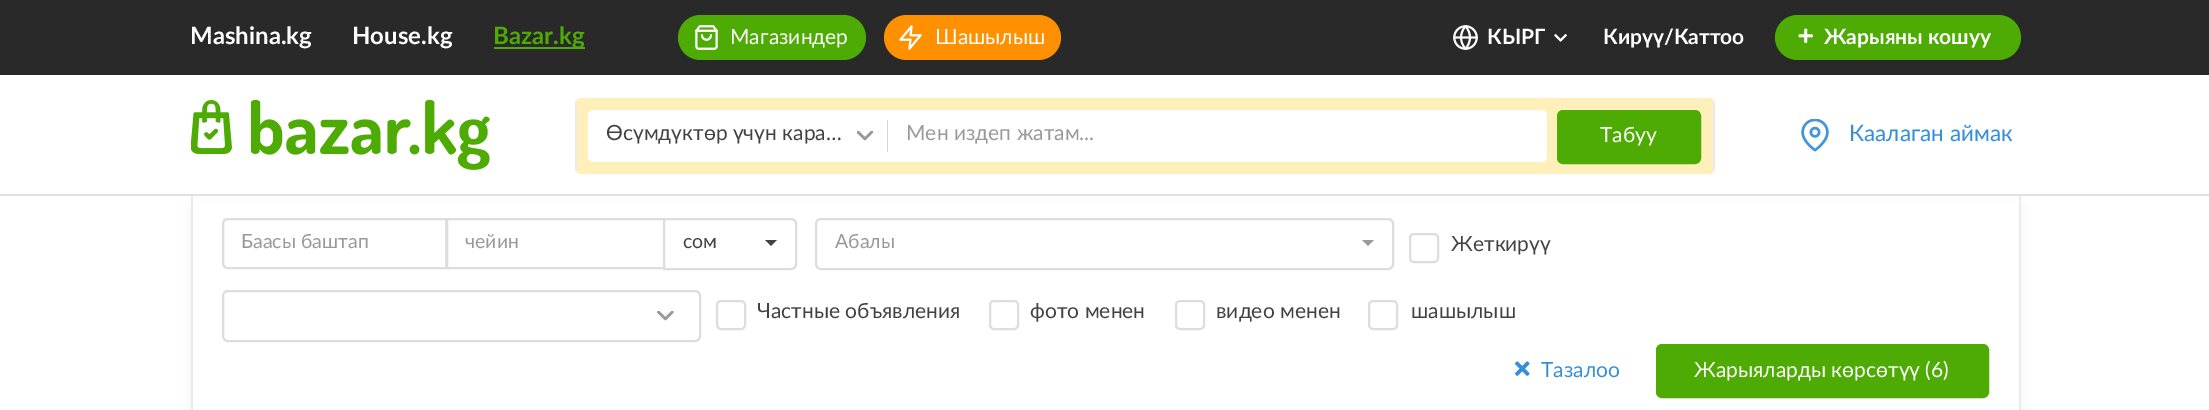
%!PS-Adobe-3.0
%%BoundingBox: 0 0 2209 410
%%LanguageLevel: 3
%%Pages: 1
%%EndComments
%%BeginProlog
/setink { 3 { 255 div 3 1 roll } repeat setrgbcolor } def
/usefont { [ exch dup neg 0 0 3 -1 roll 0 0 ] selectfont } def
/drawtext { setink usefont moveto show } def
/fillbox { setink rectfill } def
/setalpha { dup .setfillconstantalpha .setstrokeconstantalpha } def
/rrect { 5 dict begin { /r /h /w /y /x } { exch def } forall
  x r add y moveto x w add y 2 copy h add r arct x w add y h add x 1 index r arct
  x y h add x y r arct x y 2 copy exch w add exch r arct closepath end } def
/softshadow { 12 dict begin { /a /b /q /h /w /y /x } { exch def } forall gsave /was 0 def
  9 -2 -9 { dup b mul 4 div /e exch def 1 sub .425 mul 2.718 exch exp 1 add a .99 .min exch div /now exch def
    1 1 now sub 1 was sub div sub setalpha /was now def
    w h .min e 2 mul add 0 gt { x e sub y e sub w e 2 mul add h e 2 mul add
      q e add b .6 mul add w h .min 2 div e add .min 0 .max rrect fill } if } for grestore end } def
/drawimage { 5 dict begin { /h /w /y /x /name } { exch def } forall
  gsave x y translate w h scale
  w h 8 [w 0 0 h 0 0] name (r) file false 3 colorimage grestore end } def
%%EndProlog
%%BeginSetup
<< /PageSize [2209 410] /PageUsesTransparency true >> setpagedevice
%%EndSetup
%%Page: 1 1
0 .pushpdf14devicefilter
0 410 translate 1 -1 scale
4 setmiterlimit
0 0 2209 410 255 255 255 fillbox
0 0 2209 75 41 41 41 fillbox
(Mashina.kg) 190 44 /Lato-Bold 24 255 255 255 drawtext
(House.kg) 352 44 /Lato-Bold 24 255 255 255 drawtext
494 47 91 2 77 171 4 fillbox
(Bazar.kg) 493 44 /Lato-Bold 24 77 171 4 drawtext
678 15 188 45 22.5 rrect fill
(assets/img1.rgb) 695 25 23 25 drawimage
(Магазиндер) 730 44 /Lato-Regular 21 255 255 255 drawtext
255 144 0 setink
884 15 177 45 22.5 rrect fill
(assets/img2.rgb) 899 25 23 25 drawimage
(Шашылыш) 935 44 /Lato-Regular 21 255 255 255 drawtext
(assets/img3.rgb) 1453 25 25 25 drawimage
(КЫРГ) 1487 44 /Lato-Bold 21 255 255 255 drawtext
(assets/img4.rgb) 1554 34 13 8 drawimage
(Кирүү/Каттоо) 1603 44 /Lato-Bold 21 255 255 255 drawtext
77 171 4 setink
1775 15 246 45 22.5 rrect fill
(assets/img5.rgb) 1798 28 15 15 drawimage
(Жарыяны кошуу) 1824 44 /Lato-Bold 21 255 255 255 drawtext
0 0 0 setink
191 206 1830 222 0 6 0.05 softshadow
2019 195 2 215 235 235 235 fillbox
191 195 2 215 235 235 235 fillbox
0 194 2209 2 225 225 225 fillbox
(assets/img6.rgb) 191 99 299 71 drawimage
255 240 187 setink
575 98 1140 76 6 rrect fill
1713 101 2 70 235 235 235 fillbox
575 101 2 70 235 235 235 fillbox
255 255 255 setink
594 110 moveto 888 110 lineto 888 162 lineto 594 162 lineto 590.5 162 588 159.5 588 156 curveto 588 116 lineto 588 112.5 590.5 110 594 110 curveto closepath fill
(assets/img7.rgb) 857 131 17 10 drawimage
(Өсүмдүктөр үчүн кара…) 606 140 /Lato-Regular 21 66 66 66 drawtext
887 120 1 32 212 212 218 fillbox
255 255 255 setink
888 110 moveto 1541 110 lineto 1544.5 110 1547 112.5 1547 116 curveto 1547 156 lineto 1547 159.5 1544.5 162 1541 162 curveto 888 162 lineto closepath fill
(Мен издеп жатам...) 906 140 /Lato-Regular 21 153 153 153 drawtext
77 171 4 setink
1558 111 142 52 5 rrect gsave fill grestore
2 setlinewidth
stroke
(Табуу) 1600 142 /Lato-Regular 21 255 255 255 drawtext
(assets/img8.rgb) 1801 119 28 33 drawimage
(Каалаган аймак) 1849 141 /Lato-Regular 22.5 54 142 216 drawtext
193 201 1826 209 255 255 255 fillbox
221 221 221 setink
228 219 moveto 446 219 lineto 446 268 lineto 228 268 lineto 225 268 223 266 223 263 curveto 223 224 lineto 223 221 225 219 228 219 curveto closepath stroke
(Баасы баштап) 241 248 /Lato-Regular 19.5 153 153 153 drawtext
221 221 221 setink
447 219 217 49 rectstroke
(чейин) 465 248 /Lato-Regular 19.5 153 153 153 drawtext
255 255 255 setink
664 219 moveto 791 219 lineto 794 219 796 221 796 224 curveto 796 264 lineto 796 267 794 269 791 269 curveto 664 269 lineto closepath gsave fill grestore
221 221 221 setink
stroke
(сом) 683 248 /Lato-Regular 19.5 66 66 66 drawtext
765 240 moveto 777 240 lineto 771 246 lineto closepath fill
221 221 221 setink
816 219 577 50 5 rrect stroke
(Абалы) 835 248 /Lato-Regular 19.5 153 153 153 drawtext
1362 240 moveto 1374 240 lineto 1368 246 lineto closepath fill
221 221 221 setink
1410 234 28 28 4 rrect stroke
(Жеткирүү) 1451 251 /Lato-Regular 21 66 66 66 drawtext
(assets/img9.rgb) 657 311 17 10 drawimage
221 221 221 setink
223 291 477 50 5 rrect stroke
717 301 28 28 4 rrect stroke
(Частные объявления) 757 318 /Lato-Regular 21 66 66 66 drawtext
221 221 221 setink
990 301 28 28 4 rrect stroke
(фото менен) 1030 318 /Lato-Regular 21 66 66 66 drawtext
221 221 221 setink
1176 301 28 28 4 rrect stroke
(видео менен) 1216 318 /Lato-Regular 21 66 66 66 drawtext
221 221 221 setink
1369 301 28 28 4 rrect stroke
(шашылыш) 1411 318 /Lato-Regular 21 66 66 66 drawtext
(assets/img10.rgb) 1515 361 15 15 drawimage
(Тазалоо) 1541 377 /Lato-Regular 21 54 142 216 drawtext
77 171 4 setink
1657 345 331 52 5 rrect gsave fill grestore
stroke
(Жарыяларды көрсөтүү \(6\)) 1694 377 /Lato-Regular 21 255 255 255 drawtext
.poppdf14devicefilter showpage
%%EOF
